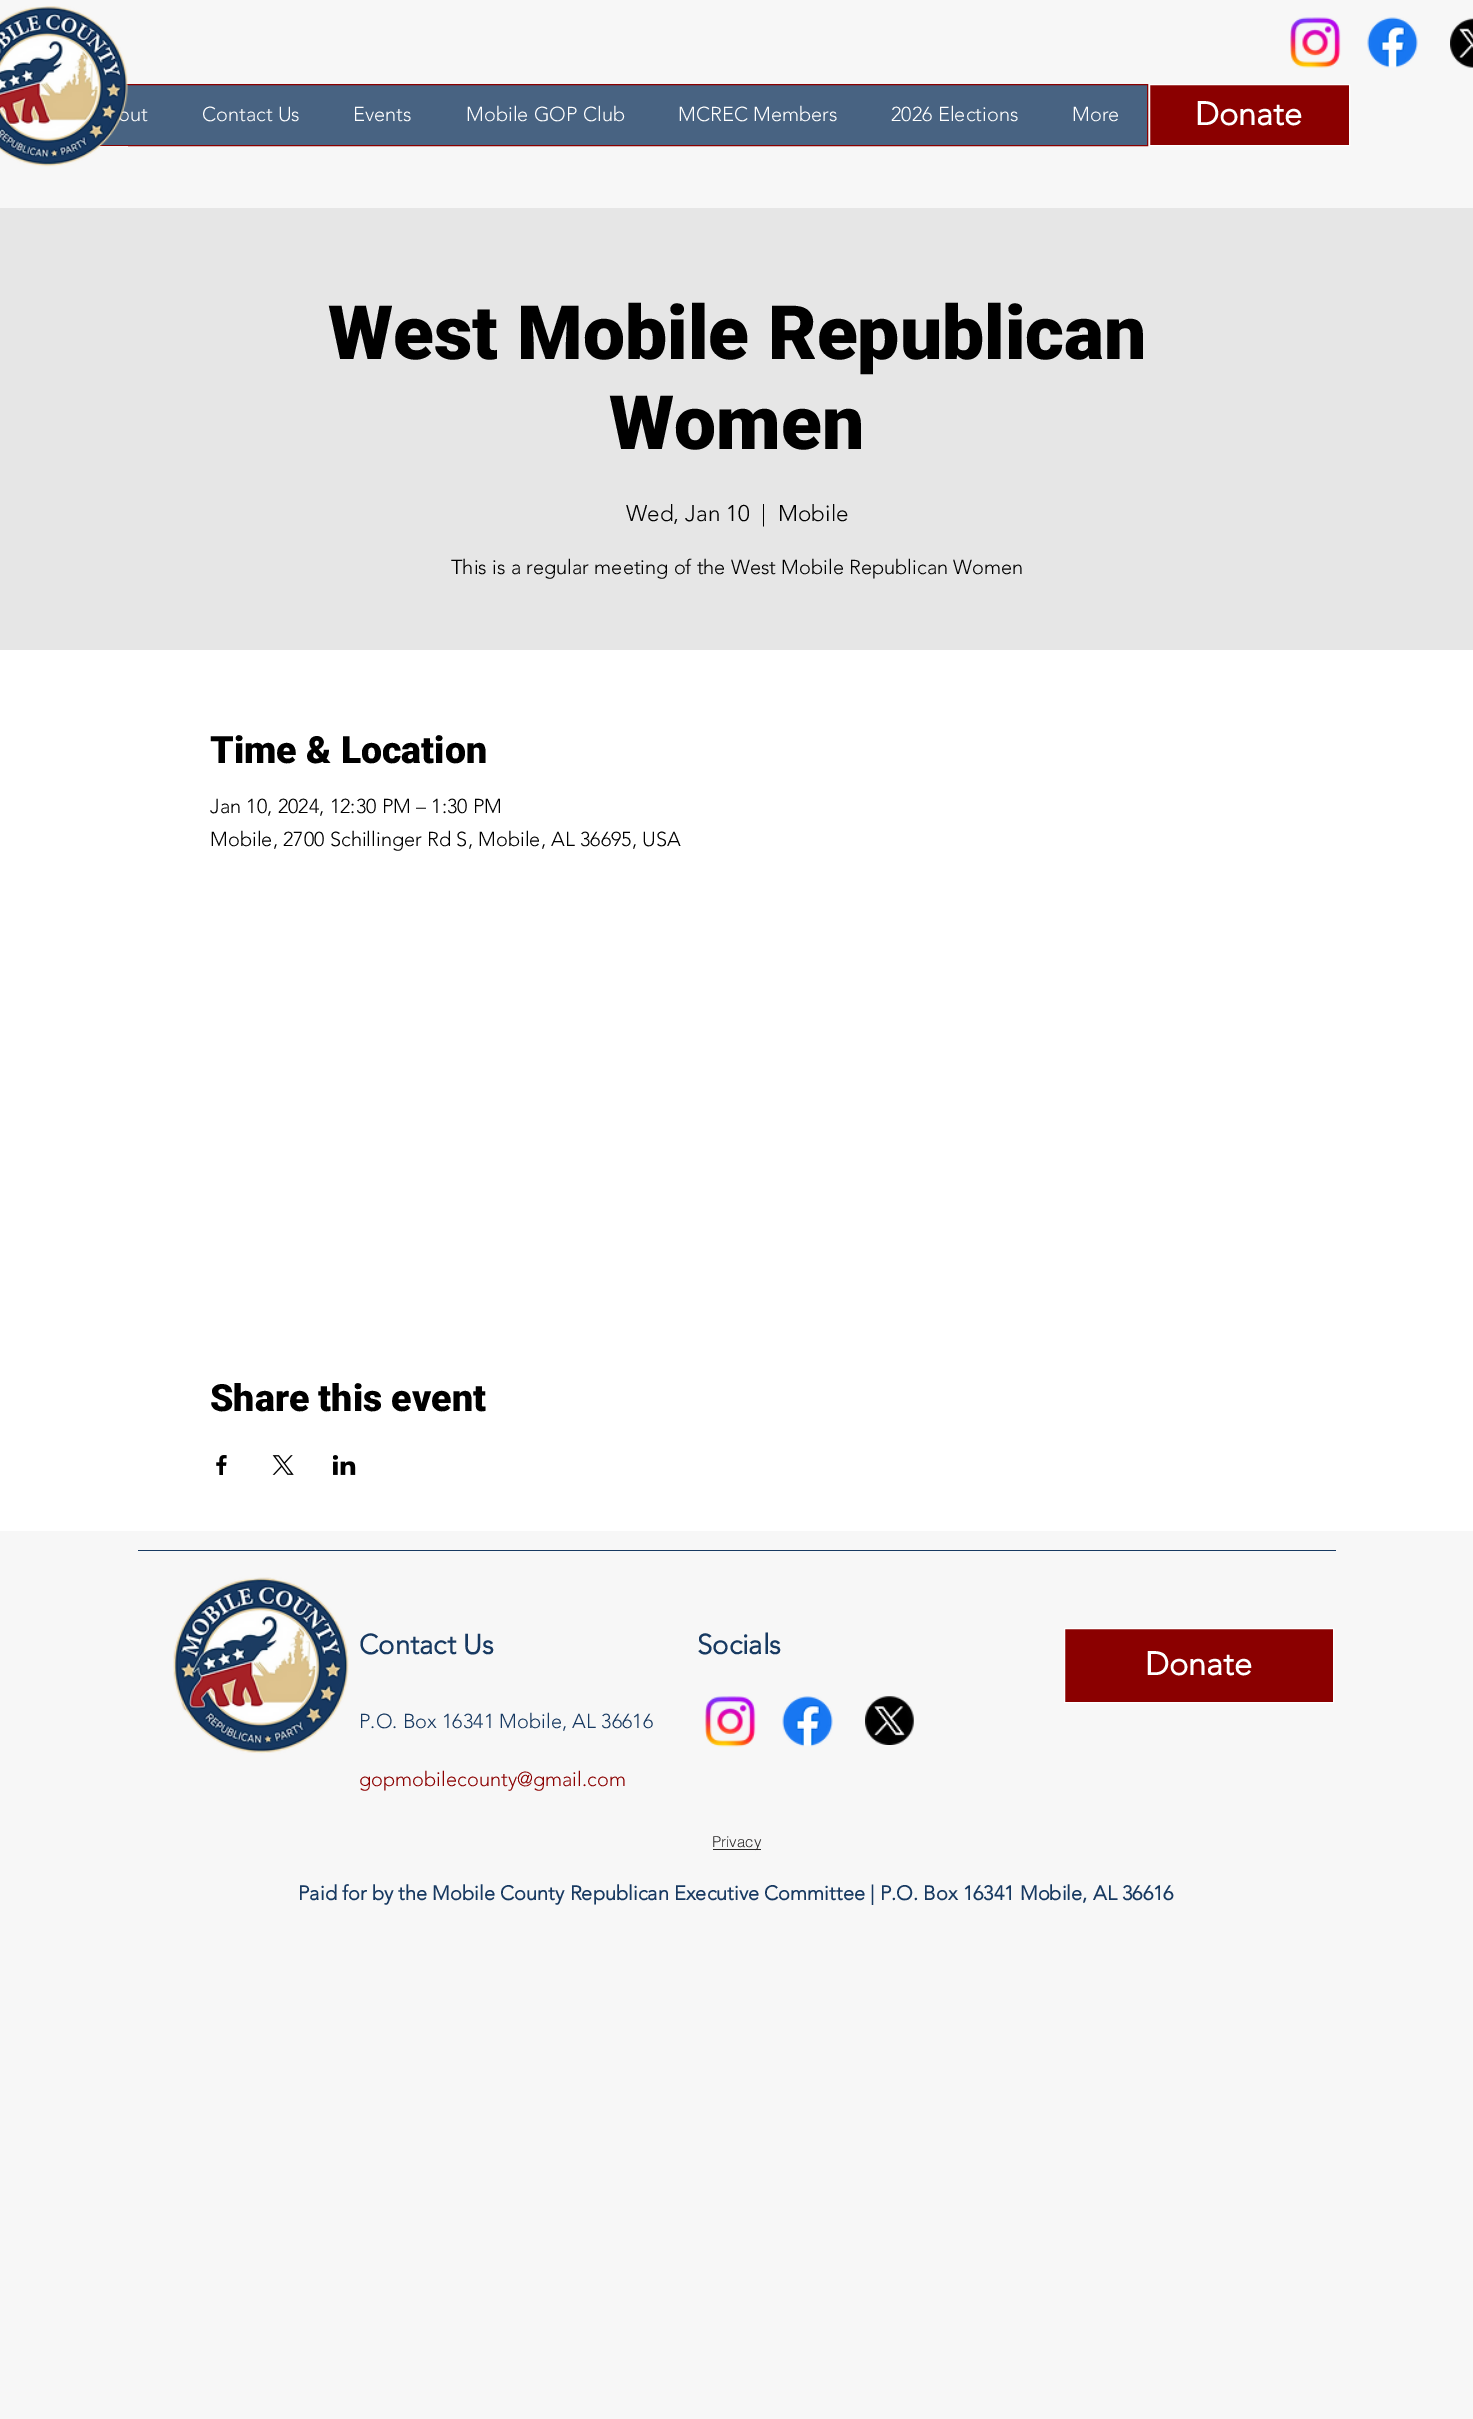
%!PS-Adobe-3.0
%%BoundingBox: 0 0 1473 2419
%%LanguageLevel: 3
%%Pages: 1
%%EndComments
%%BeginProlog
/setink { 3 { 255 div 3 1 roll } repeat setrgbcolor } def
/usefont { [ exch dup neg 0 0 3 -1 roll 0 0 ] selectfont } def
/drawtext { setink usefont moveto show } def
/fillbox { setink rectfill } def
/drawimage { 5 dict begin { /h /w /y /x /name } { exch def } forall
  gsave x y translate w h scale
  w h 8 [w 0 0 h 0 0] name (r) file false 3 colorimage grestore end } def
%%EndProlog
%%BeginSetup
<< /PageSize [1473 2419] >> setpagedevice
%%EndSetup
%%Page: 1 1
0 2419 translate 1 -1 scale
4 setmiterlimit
0 0 1473 2419 247 247 247 fillbox
97 85 1050 60 72 99 130 fillbox
139 0 0 setink
65.5 84.5 1082 61 rectstroke
(out) 118 121 /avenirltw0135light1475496-Light 20 255 255 255 drawtext
(assets/img1.rgb) 0 6 128 161 drawimage
(assets/img2.rgb) 1290 17 51 51 drawimage
(assets/img3.rgb) 1367 17 51 51 drawimage
(assets/img4.rgb) 1450 18 23 50 drawimage
(Contact Us) 202 121 /avenirltw0135light1475496-Light 20 255 255 255 drawtext
(Events) 353 121 /avenirltw0135light1475496-Light 20 255 255 255 drawtext
(Mobile GOP Club) 466 121 /avenirltw0135light1475496-Light 20 255 255 255 drawtext
(MCREC Members) 678 121 /avenirltw0135light1475496-Light 20 255 255 255 drawtext
(2026 Elections) 891 121 /avenirltw0135light1475496-Light 20 255 255 255 drawtext
(More) 1072 121 /avenirltw0135light1475496-Light 20 255 255 255 drawtext
139 0 0 setink
1149.5 84.5 moveto 1349.5 84.5 lineto 1349.5 145.5 lineto 1149.5 145.5 lineto closepath gsave fill grestore
255 255 255 setink
stroke
(Donate) 1195 125 /avenirltw0135light1475496-Bold 32.5 255 255 255 drawtext
0 208 1473 442 230 230 230 fillbox
(West Mobile Republican) 328 359 /Roboto-Black 75 0 0 0 drawtext
(Women) 609 449 /Roboto-Black 75 0 0 0 drawtext
(Wed, Jan 10) 626 521 /avenirltw0135light1475496-Light 22.5 0 0 0 drawtext
(|) 761 521 /avenirltw0135light1475496-Light 22.5 0 0 0 drawtext
(Mobile) 778 521 /avenirltw0135light1475496-Light 22.5 0 0 0 drawtext
(This is a regular meeting of the West Mobile Republican Women) 451 574 /avenirltw0135light1475496-Light 20 0 0 0 drawtext
0 650 1473 881 255 255 255 fillbox
(Time & Location) 210 763 /Roboto-Black 37.5 0 0 0 drawtext
(Jan 10, 2024, 12:30 PM – 1:30 PM) 210 813 /avenirltw0135light1475496-Light 20 0 0 0 drawtext
(Mobile, 2700 Schillinger Rd S, Mobile, AL 36695, USA) 210 846 /avenirltw0135light1475496-Light 20 0 0 0 drawtext
(Share this event) 210 1411 /Roboto-Black 37.5 0 0 0 drawtext
(assets/img5.rgb) 216 1455 11 20 drawimage
(assets/img6.rgb) 272 1455 22 20 drawimage
(assets/img7.rgb) 333 1455 23 20 drawimage
138 1550 1198 1 23 57 97 fillbox
(assets/img8.rgb) 173 1577 176 177 drawimage
(Contact Us) 359 1654 /avenirltw0135light1475496-Bold 27.5 23 57 97 drawtext
(P.O. Box 16341 Mobile, AL 36616) 359 1728 /avenirltw0135light1475496-Light 20 23 57 97 drawtext
(gopmobilecounty@gmail.com) 359 1786 /avenirltw0135light1475496-Light 20 139 0 0 drawtext
(Socials) 697 1654 /avenirltw0135light1475496-Bold 27.5 23 57 97 drawtext
(assets/img9.rgb) 705 1696 51 51 drawimage
(assets/img10.rgb) 782 1696 51 51 drawimage
(assets/img11.rgb) 865 1696 49 49 drawimage
139 0 0 setink
1064.5 1628.5 moveto 1333.5 1628.5 lineto 1333.5 1702.5 lineto 1064.5 1702.5 lineto closepath gsave fill grestore
255 255 255 setink
stroke
(Donate) 1145 1675 /avenirltw0135light1475496-Bold 32.5 255 255 255 drawtext
713 1849 48 1 40 38 38 fillbox
(Privacy) 712 1847 /helvetica-Light 15 40 38 38 drawtext
(Paid for by the Mobile County Republican Executive Committee | P.O. Box 16341 Mobile, AL 36616) 298 1900 /avenirltw0135light1475496-Bold 20 23 57 97 drawtext
showpage
%%EOF
